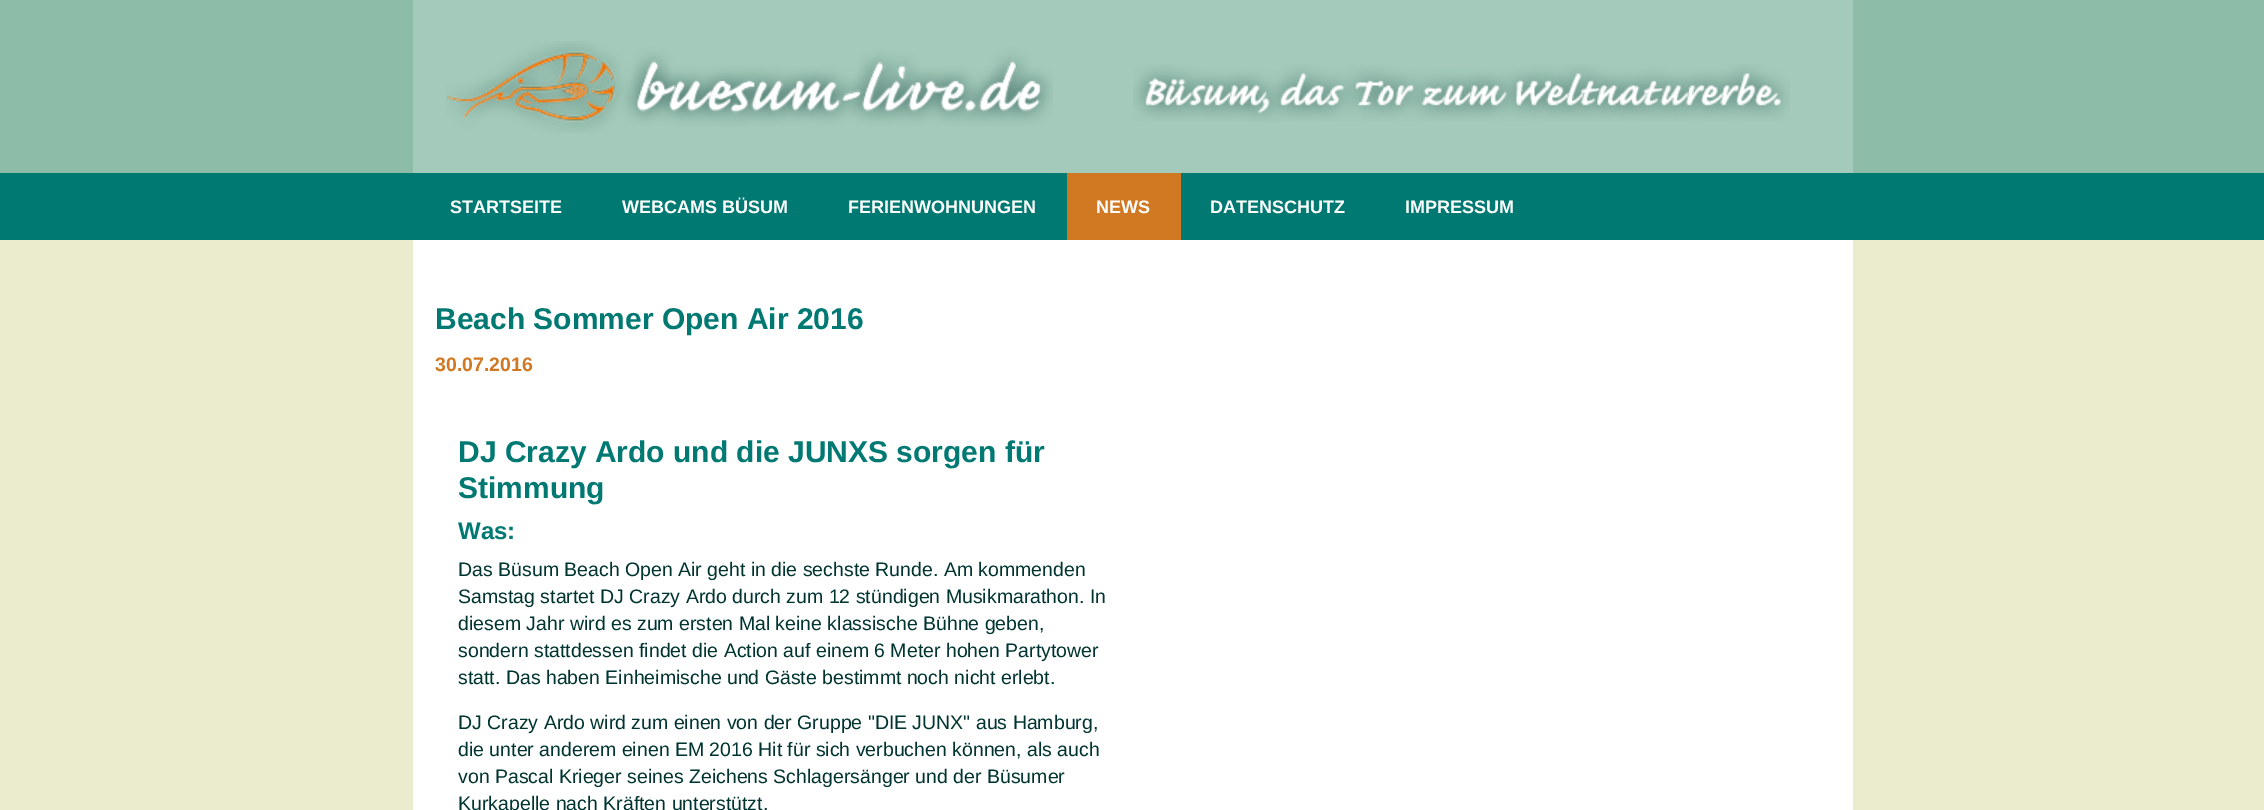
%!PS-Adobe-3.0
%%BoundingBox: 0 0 2264 810
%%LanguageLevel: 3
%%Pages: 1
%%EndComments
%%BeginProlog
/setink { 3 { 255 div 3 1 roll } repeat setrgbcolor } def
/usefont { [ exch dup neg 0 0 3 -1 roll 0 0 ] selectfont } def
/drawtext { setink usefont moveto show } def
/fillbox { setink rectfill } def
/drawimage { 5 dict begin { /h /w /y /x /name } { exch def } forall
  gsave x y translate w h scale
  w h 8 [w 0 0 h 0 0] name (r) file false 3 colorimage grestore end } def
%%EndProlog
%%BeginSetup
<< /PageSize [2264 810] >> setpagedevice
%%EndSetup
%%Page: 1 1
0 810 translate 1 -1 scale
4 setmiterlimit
0 0 2264 810 235 235 205 fillbox
0 0 2264 173 141 189 169 fillbox
413 0 1440 173 163 202 186 fillbox
(assets/img1.rgb) 446 41 607 92 drawimage
(assets/img2.rgb) 1133 64 657 58 drawimage
0 173 2264 67 0 121 114 fillbox
(STARTSEITE) 450 213 /LiberationSans-Bold 18 255 255 255 drawtext
(WEBCAMS BÜSUM) 622 213 /LiberationSans-Bold 18 255 255 255 drawtext
(FERIENWOHNUNGEN) 848 213 /LiberationSans-Bold 18 255 255 255 drawtext
1067 173 114 67 209 120 35 fillbox
(NEWS) 1096 213 /LiberationSans-Bold 18 255 255 255 drawtext
(DATENSCHUTZ) 1210 213 /LiberationSans-Bold 18 255 255 255 drawtext
(IMPRESSUM) 1405 213 /LiberationSans-Bold 18 255 255 255 drawtext
413 240 1440 570 255 255 255 fillbox
(Beach Sommer Open Air 2016) 435 329 /LiberationSans-Bold 30 0 121 114 drawtext
(30.07.2016) 435 371 /LiberationSans-Bold 19.5 209 120 35 drawtext
(DJ Crazy Ardo und die JUNXS sorgen für) 458 462 /LiberationSans-Bold 30 0 121 114 drawtext
(Stimmung) 458 498 /LiberationSans-Bold 30 0 121 114 drawtext
(Was:) 458 539 /LiberationSans-Bold 24 0 121 114 drawtext
(Das Büsum Beach Open Air geht in die sechste Runde. Am kommenden) 458 576 /LiberationSans-Regular 19.5 0 52 48 drawtext
(Samstag startet DJ Crazy Ardo durch zum 12 stündigen Musikmarathon. In) 458 603 /LiberationSans-Regular 19.5 0 52 48 drawtext
(diesem Jahr wird es zum ersten Mal keine klassische Bühne geben,) 458 630 /LiberationSans-Regular 19.5 0 52 48 drawtext
(sondern stattdessen findet die Action auf einem 6 Meter hohen Partytower) 458 657 /LiberationSans-Regular 19.5 0 52 48 drawtext
(statt. Das haben Einheimische und Gäste bestimmt noch nicht erlebt.) 458 684 /LiberationSans-Regular 19.5 0 52 48 drawtext
(DJ Crazy Ardo wird zum einen von der Gruppe "DIE JUNX" aus Hamburg,) 458 729 /LiberationSans-Regular 19.5 0 52 48 drawtext
(die unter anderem einen EM 2016 Hit für sich verbuchen können, als auch) 458 756 /LiberationSans-Regular 19.5 0 52 48 drawtext
(von Pascal Krieger seines Zeichens Schlagersänger und der Büsumer) 458 783 /LiberationSans-Regular 19.5 0 52 48 drawtext
(Kurkapelle nach Kräften unterstützt.) 458 810 /LiberationSans-Regular 19.5 0 52 48 drawtext
showpage
%%EOF
